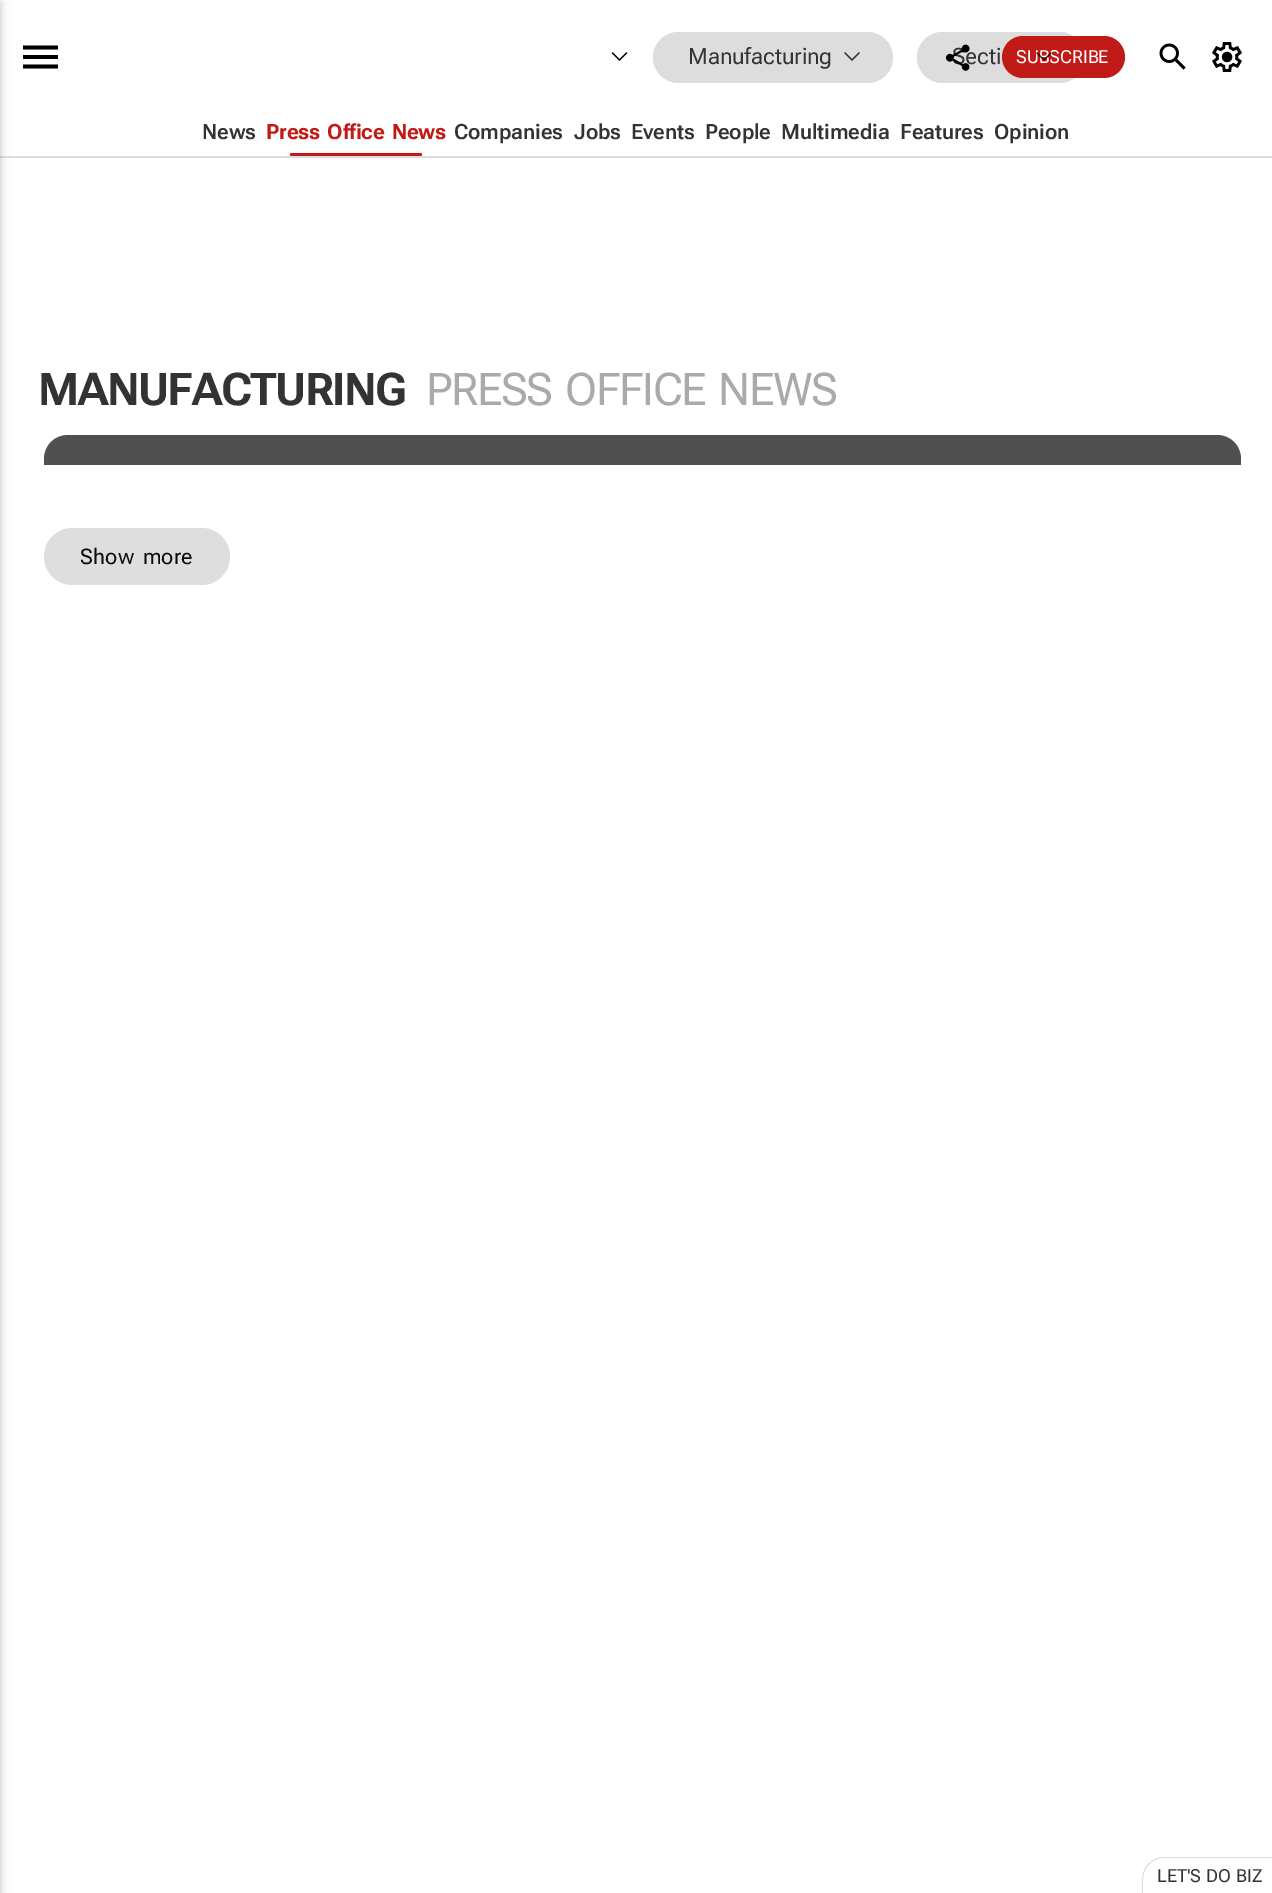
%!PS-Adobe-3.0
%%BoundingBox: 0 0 1272 1893
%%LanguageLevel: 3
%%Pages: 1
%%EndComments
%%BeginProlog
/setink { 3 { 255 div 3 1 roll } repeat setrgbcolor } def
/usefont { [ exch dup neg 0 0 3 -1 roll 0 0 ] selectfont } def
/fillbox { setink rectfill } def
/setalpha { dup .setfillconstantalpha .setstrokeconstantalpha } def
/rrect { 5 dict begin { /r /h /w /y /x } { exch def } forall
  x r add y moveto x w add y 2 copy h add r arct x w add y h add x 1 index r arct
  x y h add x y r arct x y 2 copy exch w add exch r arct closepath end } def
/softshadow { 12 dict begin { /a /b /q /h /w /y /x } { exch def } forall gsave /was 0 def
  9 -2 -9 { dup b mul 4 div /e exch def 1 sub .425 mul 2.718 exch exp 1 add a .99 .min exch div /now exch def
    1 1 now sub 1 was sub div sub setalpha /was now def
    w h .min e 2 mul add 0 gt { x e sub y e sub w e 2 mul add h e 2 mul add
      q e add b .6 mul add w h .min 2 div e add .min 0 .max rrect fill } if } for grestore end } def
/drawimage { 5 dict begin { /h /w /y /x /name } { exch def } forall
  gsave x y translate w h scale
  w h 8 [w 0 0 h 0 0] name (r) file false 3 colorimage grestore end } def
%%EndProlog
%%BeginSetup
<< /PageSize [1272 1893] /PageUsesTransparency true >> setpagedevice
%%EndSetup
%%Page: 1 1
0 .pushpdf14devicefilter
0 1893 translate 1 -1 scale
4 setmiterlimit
0 0 1272 1893 255 255 255 fillbox
0 156 1272 2 221 221 221 fillbox
32 33 36 setink
-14 2 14 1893 0 4.5 0.28 softshadow
0 0 0 setink
23 68.5 moveto 23 64.5 lineto 58 64.5 lineto 58 68.5 lineto closepath 23 59 moveto 23 55 lineto 58 55 lineto 58 59 lineto closepath 23 49.5 moveto 23 45.5 lineto 58 45.5 lineto 58 49.5 lineto closepath fill
(assets/img1.rgb) 611 52 17 9 drawimage
221 221 221 setink
653 32 240 51 25.5 rrect fill
/RobotoFlex-Regular 22.5 usefont
51 51 51 setink
688 64 moveto -0.1 0 (Manufacturing) ashow
(assets/img2.rgb) 844 52 16 9 drawimage
221 221 221 setink
917 32 168 51 25.5 rrect fill
51 51 51 setink
952 64 moveto -0.1 0 (Secti) ashow
193 27 23 setink
1002 36 123 42 21 rrect fill
/RobotoFlex-Regular 18 usefont
255 255 255 setink
1016 63 moveto -0.1 0 (SUBSCRIBE) ashow
(assets/img3.rgb) 1036 52 16 9 drawimage
(assets/img4.rgb) 945 44 25 27 drawimage
(assets/img5.rgb) 1159 43 27 27 drawimage
(assets/img6.rgb) 1212 42 30 30 drawimage
/RobotoFlex-SemiBold 21 usefont
51 51 51 setink
202 139 moveto -0.1 0 (News) ashow
/RobotoFlex-Bold 21 usefont
193 27 23 setink
266 139 moveto 2 0 32 -0.1 0 (Press Office News) awidthshow
290 153 132 3 1.5 rrect fill
/RobotoFlex-SemiBold 21 usefont
51 51 51 setink
454 139 moveto -0.1 0 (Companies) ashow
574 139 moveto -0.1 0 (Jobs) ashow
631 139 moveto -0.1 0 (Events) ashow
705 139 moveto -0.1 0 (People) ashow
781 139 moveto -0.1 0 (Multimedia) ashow
900 139 moveto -0.1 0 (Features) ashow
994 139 moveto -0.1 0 (Opinion) ashow
/RobotoFlex-Bold 45 usefont
38 405 moveto -1.5 0 (MANUFACTURING) ashow
/RobotoFlex-Regular 45 usefont
170 170 170 setink
426 405 moveto 4 0 32 -1.5 0 (PRESS OFFICE NEWS) awidthshow
80 80 80 setink
68 435 moveto 1217 435 lineto 1230.5 435 1241 445.5 1241 459 curveto 1241 465 lineto 44 465 lineto 44 459 lineto 44 445.5 54.5 435 68 435 curveto closepath fill
222 222 222 setink
44 528 186 57 28.5 rrect fill
/RobotoFlex-Regular 21.5 usefont
10 10 10 setink
80 564 moveto 3 0 32 0.25 0 (Show more) awidthshow
221 221 221 setink
1164 1857 moveto 1272 1857 lineto 1272 1893 lineto 1142 1893 lineto 1142 1880 lineto 1142 1867 1152 1857 1164 1857 curveto closepath 1164 1858 moveto 1272 1858 lineto 1272 1893 lineto 1143 1893 lineto 1143 1880 lineto 1143 1868 1152 1858 1164 1858 curveto closepath eofill
/RobotoFlex-Regular 18 usefont
51 51 51 setink
1157 1882 moveto 1 0 32 -0.1 0 (LET'S DO BIZ) awidthshow
.poppdf14devicefilter showpage
%%EOF
